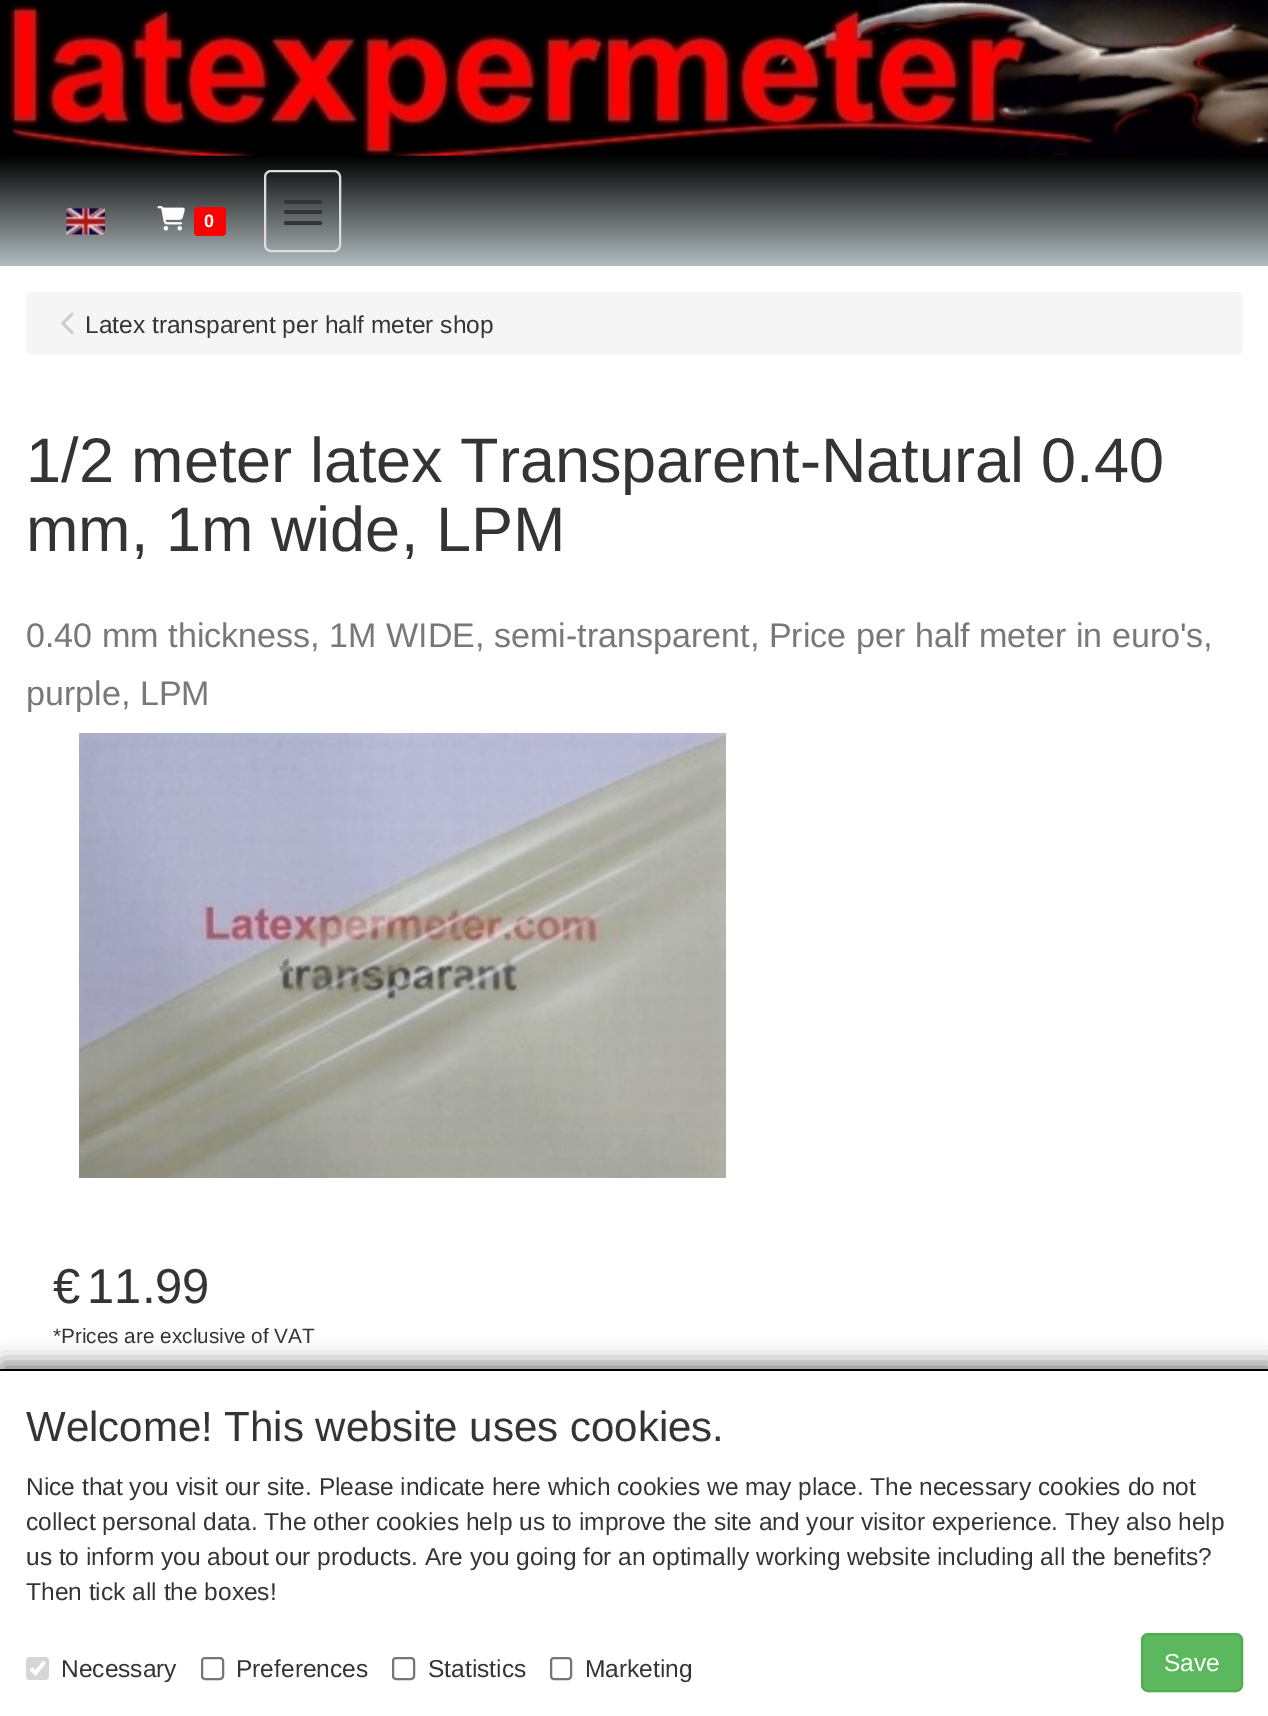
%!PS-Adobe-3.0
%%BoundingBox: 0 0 1268 1716
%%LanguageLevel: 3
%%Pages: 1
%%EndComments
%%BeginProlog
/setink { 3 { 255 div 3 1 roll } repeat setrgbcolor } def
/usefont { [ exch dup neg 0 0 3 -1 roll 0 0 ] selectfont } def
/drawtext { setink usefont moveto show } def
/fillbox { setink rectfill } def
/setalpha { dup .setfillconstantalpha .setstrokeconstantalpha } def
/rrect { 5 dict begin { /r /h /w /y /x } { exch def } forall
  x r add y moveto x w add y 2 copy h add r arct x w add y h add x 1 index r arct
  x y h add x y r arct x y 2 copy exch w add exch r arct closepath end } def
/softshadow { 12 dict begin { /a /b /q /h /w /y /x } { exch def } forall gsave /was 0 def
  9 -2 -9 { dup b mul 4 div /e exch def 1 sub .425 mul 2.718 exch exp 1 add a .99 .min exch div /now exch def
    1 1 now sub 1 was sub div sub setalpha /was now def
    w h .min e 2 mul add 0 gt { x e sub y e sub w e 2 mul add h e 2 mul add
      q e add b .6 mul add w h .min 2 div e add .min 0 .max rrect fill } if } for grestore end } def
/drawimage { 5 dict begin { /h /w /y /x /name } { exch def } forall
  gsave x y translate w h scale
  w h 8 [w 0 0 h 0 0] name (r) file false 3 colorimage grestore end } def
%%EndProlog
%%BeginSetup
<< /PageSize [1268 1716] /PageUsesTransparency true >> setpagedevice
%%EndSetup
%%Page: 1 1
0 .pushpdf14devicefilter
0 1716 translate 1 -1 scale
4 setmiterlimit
0 0 1268 1716 255 255 255 fillbox
0 0 1268 156 1 1 1 fillbox
(assets/img1.rgb) 8 0 1260 156 drawimage
gsave 0 156 moveto 1268 156 lineto 1268 266 lineto 0 266 lineto closepath clip newpath
<< /ShadingType 2 /ColorSpace /DeviceRGB /Coords [634 156 634 266] /Extend [true true] /Function << /FunctionType 2 /Domain [0 1] /C0 [0.004 0.004 0.004] /C1 [0.694 0.737 0.749] /N 1 >> >> shfill grestore
(assets/img2.rgb) 66 207 39 28 drawimage
(assets/img3.rgb) 157 206 28 25 drawimage
255 0 0 setink
194 207 32 29 4 rrect fill
(0) 204 227 /LiberationSans-Bold 18 255 255 255 drawtext
221 221 221 setink
2 setlinewidth
265 171 75 80 6 rrect stroke
52 52 52 setink
284 200 38 4 2 rrect fill
284 210 38 4 2 rrect fill
284 221 38 4 2 rrect fill
245 245 245 setink
26 292 1217 63 7 rrect fill
(assets/img4.rgb) 61 312 13 22 drawimage
(Latex transparent per half meter shop) 85 333 /LiberationSans-Regular 24.5 52 52 52 drawtext
(1/2 meter latex Transparent-Natural 0.40) 26 482 /LiberationSans-Regular 63 52 52 52 drawtext
(mm, 1m wide, LPM) 26 551 /LiberationSans-Regular 63 52 52 52 drawtext
(0.40 mm thickness, 1M WIDE, semi-transparent, Price per half meter in euro's,) 26 647 /LiberationSans-Regular 34.1 120 120 120 drawtext
(purple, LPM) 26 705 /LiberationSans-Regular 34.1 120 120 120 drawtext
(assets/img5.rgb) 79 733 647 445 drawimage
(€) 53 1303 /LiberationSans-Regular 49 52 52 52 drawtext
(11.99) 87 1303 /LiberationSans-Regular 49 52 52 52 drawtext
(*Prices are exclusive of VAT) 53 1343 /LiberationSans-Regular 20.75 52 52 52 drawtext
128 128 128 setink
2 1363 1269 349 0 10.5 1 softshadow
0 1371 1268 345 255 255 255 fillbox
0 1369 1268 2 0 0 0 fillbox
(Welcome! This website uses cookies.) 26 1441 /LiberationSans-Regular 42 52 52 52 drawtext
(Nice that you visit our site. Please indicate here which cookies we may place. The necessary cookies do not) 26 1495 /LiberationSans-Regular 24.5 52 52 52 drawtext
(collect personal data. The other cookies help us to improve the site and your visitor experience. They also help) 26 1530 /LiberationSans-Regular 24.5 52 52 52 drawtext
(us to inform you about our products. Are you going for an optimally working website including all the benefits?) 26 1565 /LiberationSans-Regular 24.5 52 52 52 drawtext
(Then tick all the boxes!) 26 1600 /LiberationSans-Regular 24.5 52 52 52 drawtext
214 214 214 setink
26 1657 23 23 4 rrect fill
255 255 255 setink
3.6 setlinewidth
31 1668.5 moveto 35.5 1673 lineto 44.5 1662 lineto stroke
(Necessary) 61 1677 /LiberationSans-Regular 24.5 52 52 52 drawtext
118 118 118 setink
2 setlinewidth
202 1658 21 21 3 rrect stroke
(Preferences) 236 1677 /LiberationSans-Regular 24.5 52 52 52 drawtext
118 118 118 setink
393 1658 21 21 3 rrect stroke
(Statistics) 428 1677 /LiberationSans-Regular 24.5 52 52 52 drawtext
118 118 118 setink
551 1658 20 21 3 rrect stroke
(Marketing) 585 1677 /LiberationSans-Regular 24.5 52 52 52 drawtext
92 184 92 setink
1142 1634 100 57 6 rrect gsave fill grestore
76 174 76 setink
stroke
(Save) 1164 1671 /LiberationSans-Regular 24.5 255 255 255 drawtext
.poppdf14devicefilter showpage
%%EOF
